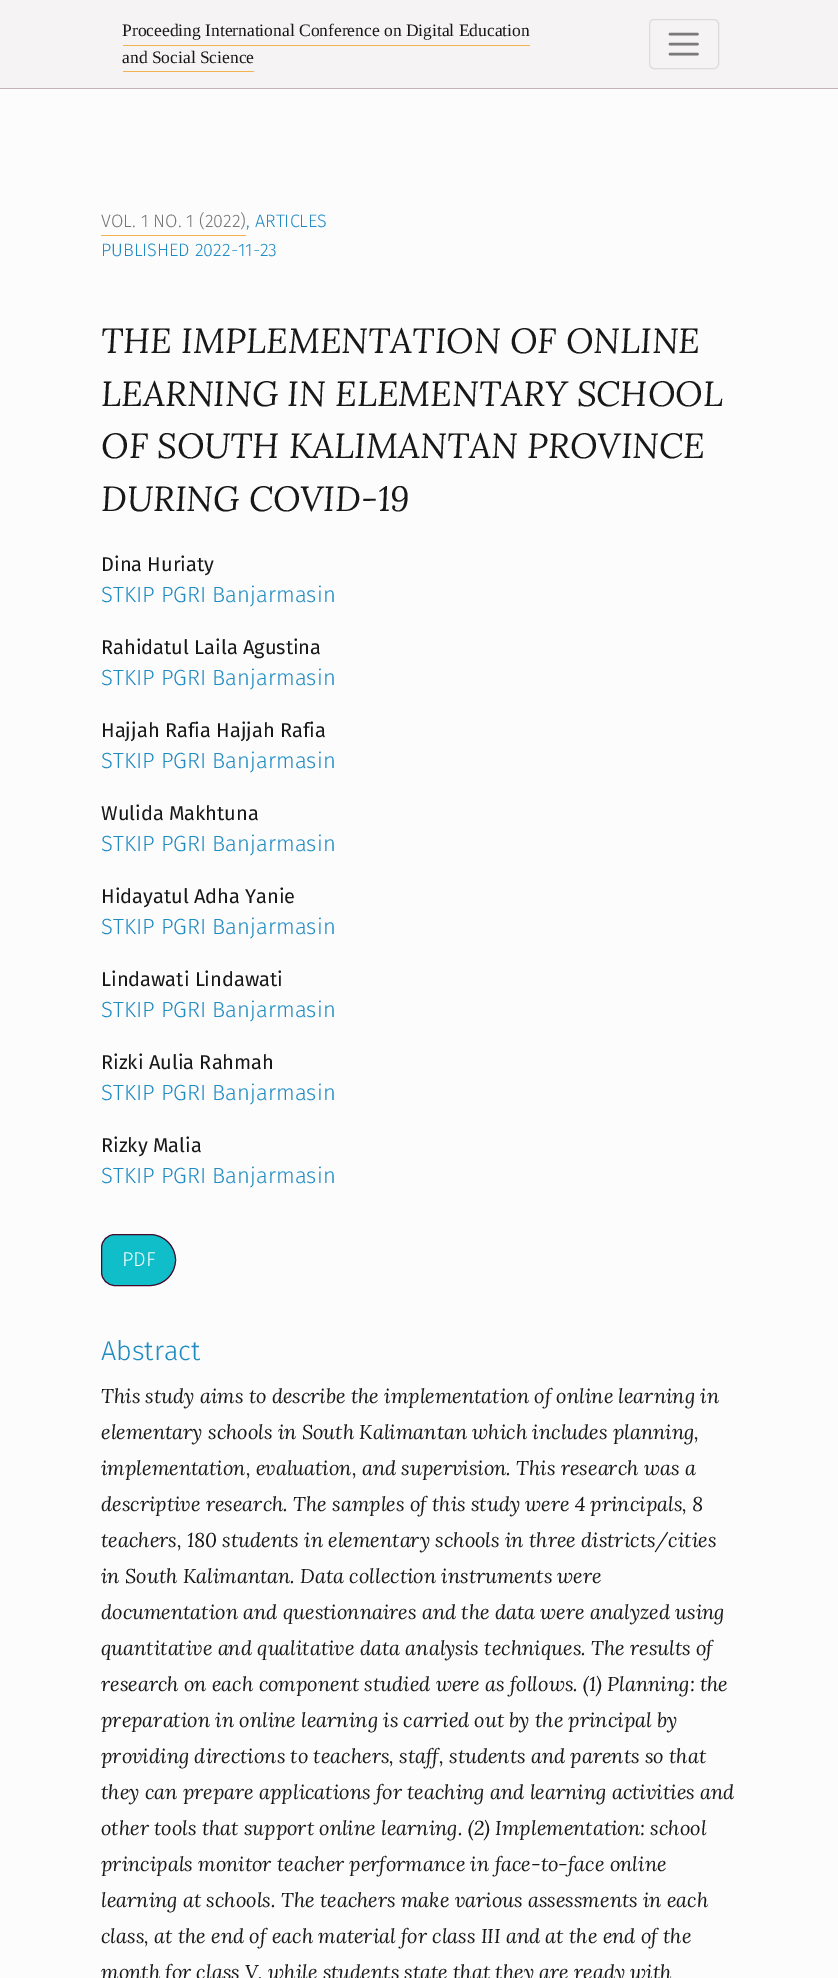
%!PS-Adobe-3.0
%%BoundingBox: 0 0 838 1978
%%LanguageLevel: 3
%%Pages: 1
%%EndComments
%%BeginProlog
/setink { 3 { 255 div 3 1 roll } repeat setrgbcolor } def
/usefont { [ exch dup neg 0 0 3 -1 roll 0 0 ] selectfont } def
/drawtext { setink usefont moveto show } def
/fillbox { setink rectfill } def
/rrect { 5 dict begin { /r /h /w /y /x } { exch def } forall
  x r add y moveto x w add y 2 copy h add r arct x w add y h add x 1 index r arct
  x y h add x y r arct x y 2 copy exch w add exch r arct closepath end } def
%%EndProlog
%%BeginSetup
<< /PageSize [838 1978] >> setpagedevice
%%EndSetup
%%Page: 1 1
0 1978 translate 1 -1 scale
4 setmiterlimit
0 0 838 1978 252 252 252 fillbox
0 0 838 88 245 243 244 fillbox
0 88 838 1 197 179 188 fillbox
(Proceeding International Conference on Digital Education) 122 36 /LiberationSerif-Regular 17.5 25 24 24 drawtext
(and Social Science) 122 63 /LiberationSerif-Regular 17.5 25 24 24 drawtext
123 45 407 1 244 179 80 fillbox
123 71 131 1 244 179 80 fillbox
221 219 220 setink
649.5 19.5 69 49 4.5 rrect stroke
123 122 122 setink
2.5 setlinewidth
1 setlinecap
670 34 moveto 697.5 34 lineto 670 44 moveto 697.5 44 lineto 670 54 moveto 697.5 54 lineto stroke
(VOL. 1 NO. 1 \(2022\)) 101 227 /FiraSans-Light 18 117 117 117 drawtext
101 235 145 1 244 179 80 fillbox
(, ARTICLES) 246 227 /FiraSans-Light 18 30 139 195 drawtext
(PUBLISHED 2022-11-23) 101 256 /FiraSans-Light 18 30 139 195 drawtext
(THE IMPLEMENTATION OF ONLINE) 101 353 /Lora-Italic 35 25 24 24 drawtext
(LEARNING IN ELEMENTARY SCHOOL) 101 406 /Lora-Italic 35 25 24 24 drawtext
(OF SOUTH KALIMANTAN PROVINCE) 101 458 /Lora-Italic 35 25 24 24 drawtext
(DURING COVID-19) 101 511 /Lora-Italic 35 25 24 24 drawtext
(Dina Huriaty) 101 571 /FiraSans-Regular 20 25 24 24 drawtext
(STKIP PGRI Banjarmasin) 101 602 /FiraSans-Light 22 30 139 195 drawtext
(Rahidatul Laila Agustina) 101 654 /FiraSans-Regular 20 25 24 24 drawtext
(STKIP PGRI Banjarmasin) 101 685 /FiraSans-Light 22 30 139 195 drawtext
(Hajjah Rafia Hajjah Rafia) 101 737 /FiraSans-Regular 20 25 24 24 drawtext
(STKIP PGRI Banjarmasin) 101 768 /FiraSans-Light 22 30 139 195 drawtext
(Wulida Makhtuna) 101 820 /FiraSans-Regular 20 25 24 24 drawtext
(STKIP PGRI Banjarmasin) 101 851 /FiraSans-Light 22 30 139 195 drawtext
(Hidayatul Adha Yanie) 101 903 /FiraSans-Regular 20 25 24 24 drawtext
(STKIP PGRI Banjarmasin) 101 934 /FiraSans-Light 22 30 139 195 drawtext
(Lindawati Lindawati) 101 986 /FiraSans-Regular 20 25 24 24 drawtext
(STKIP PGRI Banjarmasin) 101 1017 /FiraSans-Light 22 30 139 195 drawtext
(Rizki Aulia Rahmah) 101 1069 /FiraSans-Regular 20 25 24 24 drawtext
(STKIP PGRI Banjarmasin) 101 1100 /FiraSans-Light 22 30 139 195 drawtext
(Rizky Malia) 101 1152 /FiraSans-Regular 20 25 24 24 drawtext
(STKIP PGRI Banjarmasin) 101 1183 /FiraSans-Light 22 30 139 195 drawtext
16 190 202 setink
115 1234.5 moveto 150 1234.5 lineto 164 1234.5 175.5 1246 175.5 1260 curveto 175.5 1274 164 1285.5 150 1285.5 curveto 115 1285.5 lineto 107.5 1285.5 101.5 1279.5 101.5 1272 curveto 101.5 1248 lineto 101.5 1240.5 107.5 1234.5 115 1234.5 curveto closepath gsave fill grestore
72 9 43 setink
1 setlinewidth
0 setlinecap
stroke
(PDF) 122 1266 /FiraSans-Light 20 252 252 252 drawtext
(Abstract) 101 1360 /FiraSans-Light 27 30 139 195 drawtext
(This study aims to describe the implementation of online learning in) 101 1403 /Lora-Italic 20 25 24 24 drawtext
(elementary schools in South Kalimantan which includes planning,) 101 1439 /Lora-Italic 20 25 24 24 drawtext
(implementation, evaluation, and supervision. This research was a) 101 1475 /Lora-Italic 20 25 24 24 drawtext
(descriptive research. The samples of this study were 4 principals, 8) 101 1511 /Lora-Italic 20 25 24 24 drawtext
(teachers, 180 students in elementary schools in three districts/cities) 101 1547 /Lora-Italic 20 25 24 24 drawtext
(in South Kalimantan. Data collection instruments were) 101 1583 /Lora-Italic 20 25 24 24 drawtext
(documentation and questionnaires and the data were analyzed using) 101 1619 /Lora-Italic 20 25 24 24 drawtext
(quantitative and qualitative data analysis techniques. The results of) 101 1655 /Lora-Italic 20 25 24 24 drawtext
(research on each component studied were as follows. \(1\) Planning: the) 101 1691 /Lora-Italic 20 25 24 24 drawtext
(preparation in online learning is carried out by the principal by) 101 1727 /Lora-Italic 20 25 24 24 drawtext
(providing directions to teachers, staff, students and parents so that) 101 1763 /Lora-Italic 20 25 24 24 drawtext
(they can prepare applications for teaching and learning activities and) 101 1799 /Lora-Italic 20 25 24 24 drawtext
(other tools that support online learning. \(2\) Implementation: school) 101 1835 /Lora-Italic 20 25 24 24 drawtext
(principals monitor teacher performance in face-to-face online) 101 1871 /Lora-Italic 20 25 24 24 drawtext
(learning at schools. The teachers make various assessments in each) 101 1907 /Lora-Italic 20 25 24 24 drawtext
(class, at the end of each material for class III and at the end of the) 101 1943 /Lora-Italic 20 25 24 24 drawtext
(month for class V, while students state that they are ready with) 101 1979 /Lora-Italic 20 25 24 24 drawtext
showpage
%%EOF
